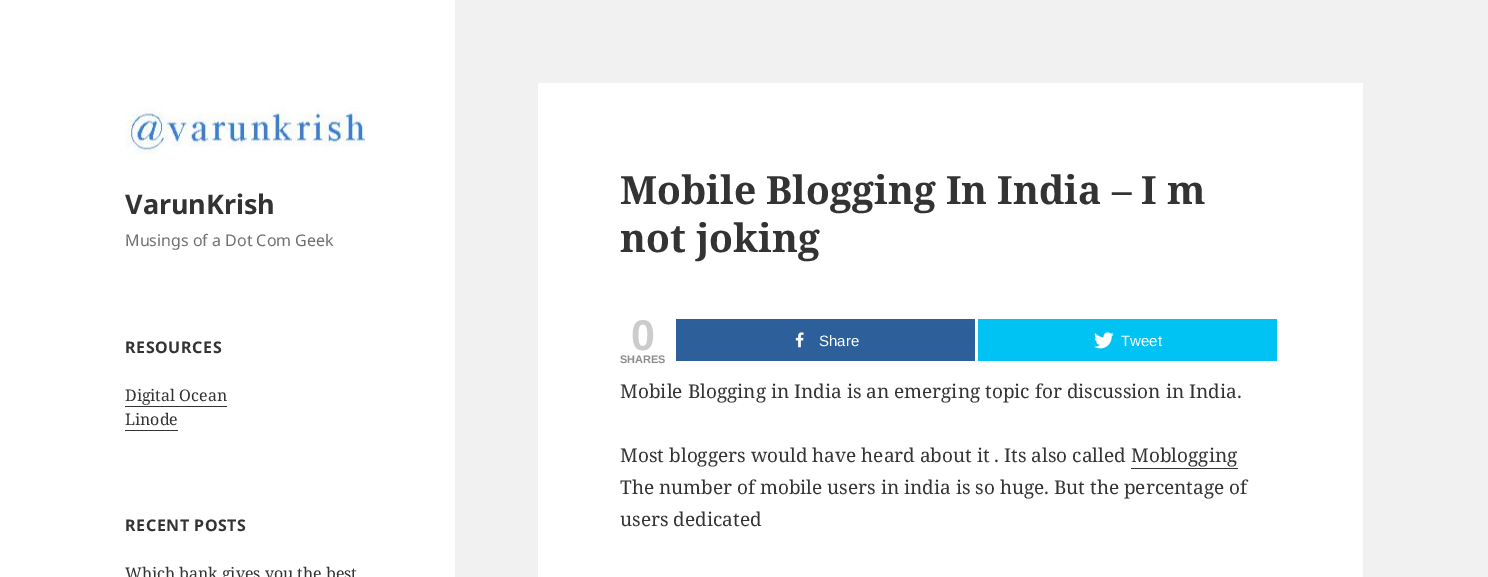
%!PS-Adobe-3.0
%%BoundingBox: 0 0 1488 577
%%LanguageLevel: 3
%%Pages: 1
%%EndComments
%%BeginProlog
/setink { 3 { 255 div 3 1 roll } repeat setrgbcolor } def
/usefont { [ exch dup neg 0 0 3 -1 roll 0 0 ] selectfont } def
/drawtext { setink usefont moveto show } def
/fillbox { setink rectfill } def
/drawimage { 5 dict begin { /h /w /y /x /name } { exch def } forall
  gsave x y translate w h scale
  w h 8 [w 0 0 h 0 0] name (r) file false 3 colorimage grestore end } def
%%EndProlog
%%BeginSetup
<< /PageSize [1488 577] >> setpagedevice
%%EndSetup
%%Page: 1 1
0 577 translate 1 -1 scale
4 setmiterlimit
0 0 1488 577 241 241 241 fillbox
0 0 455 577 255 255 255 fillbox
(assets/img1.rgb) 125 107 240 55 drawimage
(VarunKrish) 125 214 /NotoSans-Bold 27 51 51 51 drawtext
(Musings of a Dot Com Geek) 125 246 /NotoSans-Regular 16 112 112 112 drawtext
/NotoSans-Bold 16 usefont
51 51 51 setink
125 353 moveto 0.6 0 (RESOURCES) ashow
(Digital Ocean) 125 401 /NotoSerif-Regular 16 51 51 51 drawtext
125 406 102 1 51 51 51 fillbox
(Linode) 125 425 /NotoSerif-Regular 16 51 51 51 drawtext
125 430 53 1 51 51 51 fillbox
/NotoSans-Bold 16 usefont
125 531 moveto 0.6 0 (RECENT POSTS) ashow
(Which bank gives you the best) 125 579 /NotoSerif-Regular 16 51 51 51 drawtext
538 83 825 494 255 255 255 fillbox
(Mobile Blogging In India – I m) 620 204 /NotoSerif-Bold 39 51 51 51 drawtext
(not joking) 620 252 /NotoSerif-Bold 39 51 51 51 drawtext
(0) 631 350 /LiberationSans-Bold 43 204 204 204 drawtext
(SHARES) 620 363 /LiberationSans-Bold 11 138 140 142 drawtext
676 319 299 42 45 95 154 fillbox
(assets/img2.rgb) 795 332 9 16 drawimage
(Share) 819 346 /LiberationSans-Regular 15 255 255 255 drawtext
978 319 299 42 0 195 243 fillbox
(assets/img3.rgb) 1094 332 20 17 drawimage
(Tweet) 1121 346 /LiberationSans-Regular 15 255 255 255 drawtext
(Mobile Blogging in India is an emerging topic for discussion in India.) 620 398 /NotoSerif-Regular 19 51 51 51 drawtext
(Most bloggers would have heard about it . Its also called Moblogging) 620 462 /NotoSerif-Regular 19 51 51 51 drawtext
1131 468 107 1 51 51 51 fillbox
(The number of mobile users in india is so huge. But the percentage of) 620 494 /NotoSerif-Regular 19 51 51 51 drawtext
(users dedicated) 620 526 /NotoSerif-Regular 19 51 51 51 drawtext
showpage
%%EOF
